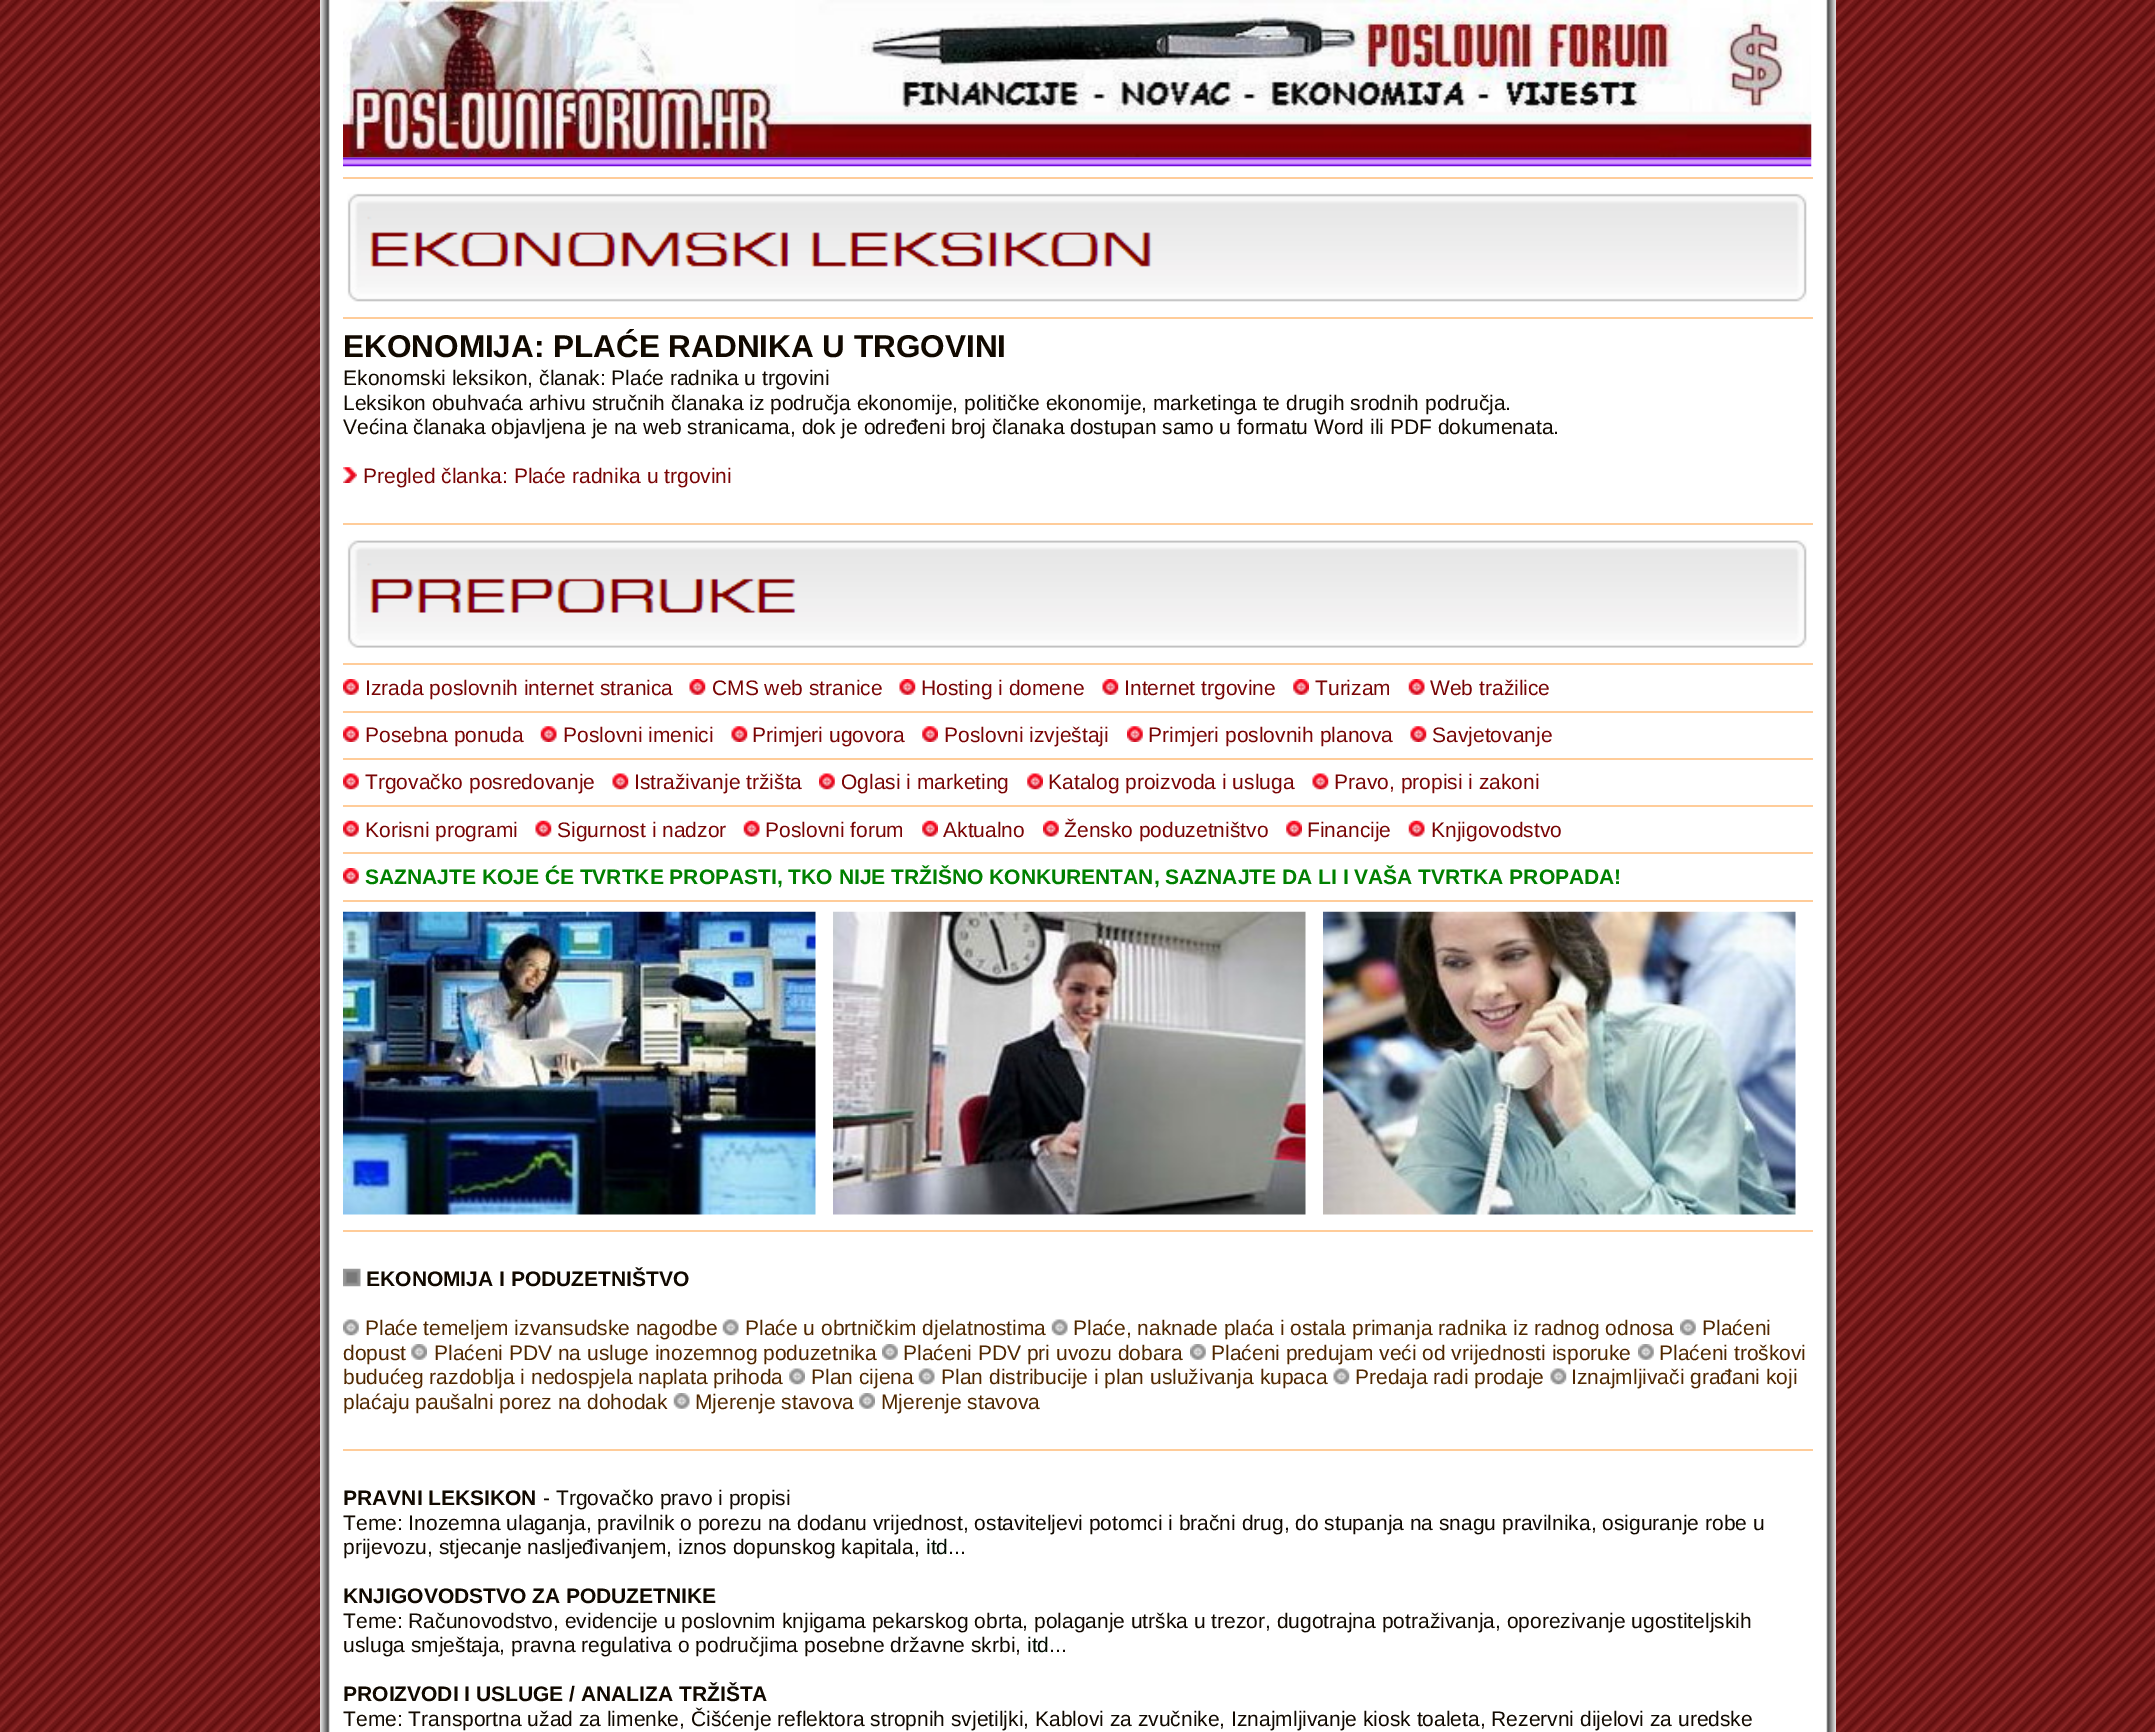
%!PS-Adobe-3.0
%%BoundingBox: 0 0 2155 1732
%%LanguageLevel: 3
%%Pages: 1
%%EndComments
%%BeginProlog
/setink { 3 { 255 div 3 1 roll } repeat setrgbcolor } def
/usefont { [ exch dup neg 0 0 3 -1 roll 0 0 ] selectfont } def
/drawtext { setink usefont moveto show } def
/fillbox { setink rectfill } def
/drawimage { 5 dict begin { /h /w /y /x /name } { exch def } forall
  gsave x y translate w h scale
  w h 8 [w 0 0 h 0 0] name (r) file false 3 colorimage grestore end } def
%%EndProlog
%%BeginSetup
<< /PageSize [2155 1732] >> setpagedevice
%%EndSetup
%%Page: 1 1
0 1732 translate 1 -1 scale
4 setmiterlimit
0 0 2155 1732 255 255 255 fillbox
(assets/img1.rgb) 0 0 2155 1732 drawimage
320 0 1516 1732 255 255 255 fillbox
(assets/img2.rgb) 320 0 10 1732 drawimage
(assets/img3.rgb) 343 0 1469 158 drawimage
(assets/img4.rgb) 343 157 1469 10 drawimage
343 177 1470 2 255 204 153 fillbox
(assets/img5.rgb) 347 193 1460 109 drawimage
343 317 1470 2 255 204 153 fillbox
(EKONOMIJA: PLAĆE RADNIKA U TRGOVINI) 343 357 /LiberationSans-Bold 31.5 17 9 0 drawtext
(Ekonomski leksikon, članak: Plaće radnika u trgovini) 343 385 /LiberationSans-Regular 21 17 9 0 drawtext
(Leksikon obuhvaća arhivu stručnih članaka iz područja ekonomije, političke ekonomije, marketinga te drugih srodnih područja.) 343 410 /LiberationSans-Regular 21 17 9 0 drawtext
(Većina članaka objavljena je na web stranicama, dok je određeni broj članaka dostupan samo u formatu Word ili PDF dokumenata.) 343 434 /LiberationSans-Regular 21 17 9 0 drawtext
(assets/img6.rgb) 343 467 14 16 drawimage
(Pregled članka: Plaće radnika u trgovini) 363 483 /LiberationSans-Regular 21 121 5 5 drawtext
343 523 1470 2 255 204 153 fillbox
(assets/img7.rgb) 347 540 1460 108 drawimage
343 663 1470 2 255 204 153 fillbox
(assets/img8.rgb) 343 679 16 16 drawimage
(Izrada poslovnih internet stranica) 365 695 /LiberationSans-Regular 21 121 5 5 drawtext
(assets/img9.rgb) 689 679 17 16 drawimage
(CMS web stranice) 712 695 /LiberationSans-Regular 21 121 5 5 drawtext
(assets/img10.rgb) 899 679 17 16 drawimage
(Hosting i domene) 921 695 /LiberationSans-Regular 21 121 5 5 drawtext
(assets/img9.rgb) 1102 679 17 16 drawimage
(Internet trgovine) 1124 695 /LiberationSans-Regular 21 121 5 5 drawtext
(assets/img11.rgb) 1293 679 16 16 drawimage
(Turizam) 1315 695 /LiberationSans-Regular 21 121 5 5 drawtext
(assets/img12.rgb) 1408 679 17 16 drawimage
(Web tražilice) 1430 695 /LiberationSans-Regular 21 121 5 5 drawtext
343 711 1470 2 255 204 153 fillbox
(assets/img13.rgb) 343 726 16 16 drawimage
(Posebna ponuda) 365 742 /LiberationSans-Regular 21 121 5 5 drawtext
(assets/img14.rgb) 540 726 17 16 drawimage
(Poslovni imenici) 563 742 /LiberationSans-Regular 21 121 5 5 drawtext
(assets/img15.rgb) 731 726 17 16 drawimage
(Primjeri ugovora) 752 742 /LiberationSans-Regular 21 121 5 5 drawtext
(assets/img16.rgb) 922 726 16 16 drawimage
(Poslovni izvještaji) 944 742 /LiberationSans-Regular 21 121 5 5 drawtext
(assets/img17.rgb) 1127 726 16 16 drawimage
(Primjeri poslovnih planova) 1148 742 /LiberationSans-Regular 21 121 5 5 drawtext
(assets/img15.rgb) 1410 726 17 16 drawimage
(Savjetovanje) 1432 742 /LiberationSans-Regular 21 121 5 5 drawtext
343 758 1470 2 255 204 153 fillbox
(assets/img18.rgb) 343 773 16 17 drawimage
(Trgovačko posredovanje) 365 789 /LiberationSans-Regular 21 121 5 5 drawtext
(assets/img19.rgb) 612 773 17 17 drawimage
(Istraživanje tržišta) 634 789 /LiberationSans-Regular 21 121 5 5 drawtext
(assets/img20.rgb) 819 773 16 17 drawimage
(Oglasi i marketing) 841 789 /LiberationSans-Regular 21 121 5 5 drawtext
(assets/img21.rgb) 1027 773 16 17 drawimage
(Katalog proizvoda i usluga) 1048 789 /LiberationSans-Regular 21 121 5 5 drawtext
(assets/img22.rgb) 1312 773 17 17 drawimage
(Pravo, propisi i zakoni) 1334 789 /LiberationSans-Regular 21 121 5 5 drawtext
343 805 1470 2 255 204 153 fillbox
(assets/img23.rgb) 343 820 16 17 drawimage
(Korisni programi) 365 837 /LiberationSans-Regular 21 121 5 5 drawtext
(assets/img24.rgb) 535 820 17 17 drawimage
(Sigurnost i nadzor) 557 837 /LiberationSans-Regular 21 121 5 5 drawtext
(assets/img25.rgb) 743 820 17 17 drawimage
(Poslovni forum) 765 837 /LiberationSans-Regular 21 121 5 5 drawtext
(assets/img26.rgb) 922 820 16 17 drawimage
(Aktualno) 943 837 /LiberationSans-Regular 21 121 5 5 drawtext
(assets/img23.rgb) 1043 820 16 17 drawimage
(Žensko poduzetništvo) 1064 837 /LiberationSans-Regular 21 121 5 5 drawtext
(assets/img27.rgb) 1286 820 16 17 drawimage
(Financije) 1307 837 /LiberationSans-Regular 21 121 5 5 drawtext
(assets/img28.rgb) 1408 820 17 17 drawimage
(Knjigovodstvo) 1431 837 /LiberationSans-Regular 21 121 5 5 drawtext
343 852 1470 2 255 204 153 fillbox
(assets/img8.rgb) 343 868 16 16 drawimage
(SAZNAJTE KOJE ĆE TVRTKE PROPASTI, TKO NIJE TRŽIŠNO KONKURENTAN, SAZNAJTE DA LI I VAŠA TVRTKA PROPADA!) 365 884 /LiberationSans-Bold 21 0 128 0 drawtext
343 900 1470 2 255 204 153 fillbox
(assets/img29.rgb) 343 911 473 304 drawimage
(assets/img30.rgb) 833 911 473 304 drawimage
(assets/img31.rgb) 1323 911 473 304 drawimage
343 1230 1470 2 255 204 153 fillbox
(assets/img32.rgb) 343 1268 18 19 drawimage
(EKONOMIJA I PODUZETNIŠTVO) 366 1286 /LiberationSans-Bold 21 17 9 0 drawtext
(assets/img33.rgb) 343 1319 16 17 drawimage
(Plaće temeljem izvansudske nagodbe) 365 1335 /LiberationSans-Regular 21 81 40 0 drawtext
(assets/img34.rgb) 722 1319 17 17 drawimage
(Plaće u obrtničkim djelatnostima) 745 1335 /LiberationSans-Regular 21 81 40 0 drawtext
(assets/img35.rgb) 1051 1319 17 17 drawimage
(Plaće, naknade plaća i ostala primanja radnika iz radnog odnosa) 1073 1335 /LiberationSans-Regular 21 81 40 0 drawtext
(assets/img36.rgb) 1680 1319 16 17 drawimage
(Plaćeni) 1702 1335 /LiberationSans-Regular 21 81 40 0 drawtext
(dopust) 343 1360 /LiberationSans-Regular 21 81 40 0 drawtext
(assets/img37.rgb) 411 1344 16 16 drawimage
(Plaćeni PDV na usluge inozemnog poduzetnika) 434 1360 /LiberationSans-Regular 21 81 40 0 drawtext
(assets/img38.rgb) 882 1344 16 16 drawimage
(Plaćeni PDV pri uvozu dobara) 903 1360 /LiberationSans-Regular 21 81 40 0 drawtext
(assets/img38.rgb) 1190 1344 16 16 drawimage
(Plaćeni predujam veći od vrijednosti isporuke) 1211 1360 /LiberationSans-Regular 21 81 40 0 drawtext
(assets/img38.rgb) 1638 1344 16 16 drawimage
(Plaćeni troškovi) 1659 1360 /LiberationSans-Regular 21 81 40 0 drawtext
(budućeg razdoblja i nedospjela naplata prihoda) 343 1384 /LiberationSans-Regular 21 81 40 0 drawtext
(assets/img39.rgb) 789 1368 16 17 drawimage
(Plan cijena) 811 1384 /LiberationSans-Regular 21 81 40 0 drawtext
(assets/img35.rgb) 918 1368 17 17 drawimage
(Plan distribucije i plan usluživanja kupaca) 941 1384 /LiberationSans-Regular 21 81 40 0 drawtext
(assets/img40.rgb) 1333 1368 17 17 drawimage
(Predaja radi prodaje) 1355 1384 /LiberationSans-Regular 21 81 40 0 drawtext
(assets/img41.rgb) 1550 1368 17 17 drawimage
(Iznajmljivači građani koji) 1571 1384 /LiberationSans-Regular 21 81 40 0 drawtext
(plaćaju paušalni porez na dohodak) 343 1409 /LiberationSans-Regular 21 81 40 0 drawtext
(assets/img42.rgb) 673 1393 17 16 drawimage
(Mjerenje stavova) 695 1409 /LiberationSans-Regular 21 81 40 0 drawtext
(assets/img37.rgb) 859 1393 16 16 drawimage
(Mjerenje stavova) 881 1409 /LiberationSans-Regular 21 81 40 0 drawtext
343 1449 1470 2 255 204 153 fillbox
(PRAVNI LEKSIKON) 343 1505 /LiberationSans-Bold 21 17 9 0 drawtext
(- Trgovačko pravo i propisi) 543 1505 /LiberationSans-Regular 21 17 9 0 drawtext
(Teme: Inozemna ulaganja, pravilnik o porezu na dodanu vrijednost, ostaviteljevi potomci i bračni drug, do stupanja na snagu pravilnika, osiguranje robe u) 343 1530 /LiberationSans-Regular 21 17 9 0 drawtext
(prijevozu, stjecanje nasljeđivanjem, iznos dopunskog kapitala,) 343 1554 /LiberationSans-Regular 21 17 9 0 drawtext
(itd) 926 1554 /LiberationSans-Regular 21 0 13 0 drawtext
(...) 948 1554 /LiberationSans-Regular 21 17 9 0 drawtext
(KNJIGOVODSTVO ZA PODUZETNIKE) 343 1603 /LiberationSans-Bold 21 17 9 0 drawtext
(Teme: Računovodstvo, evidencije u poslovnim knjigama pekarskog obrta, polaganje utrška u trezor, dugotrajna potraživanja, oporezivanje ugostiteljskih) 343 1628 /LiberationSans-Regular 21 17 9 0 drawtext
(usluga smještaja, pravna regulativa o područjima posebne državne skrbi,) 343 1652 /LiberationSans-Regular 21 17 9 0 drawtext
(itd) 1027 1652 /LiberationSans-Regular 21 0 13 0 drawtext
(...) 1049 1652 /LiberationSans-Regular 21 17 9 0 drawtext
(PROIZVODI I USLUGE / ANALIZA TRŽIŠTA) 343 1701 /LiberationSans-Bold 21 17 9 0 drawtext
(Teme: Transportna užad za limenke, Čišćenje reflektora stropnih svjetiljki, Kablovi za zvučnike, Iznajmljivanje kiosk toaleta, Rezervni dijelovi za uredske) 343 1726 /LiberationSans-Regular 21 17 9 0 drawtext
(assets/img43.rgb) 1826 0 10 1732 drawimage
showpage
%%EOF
